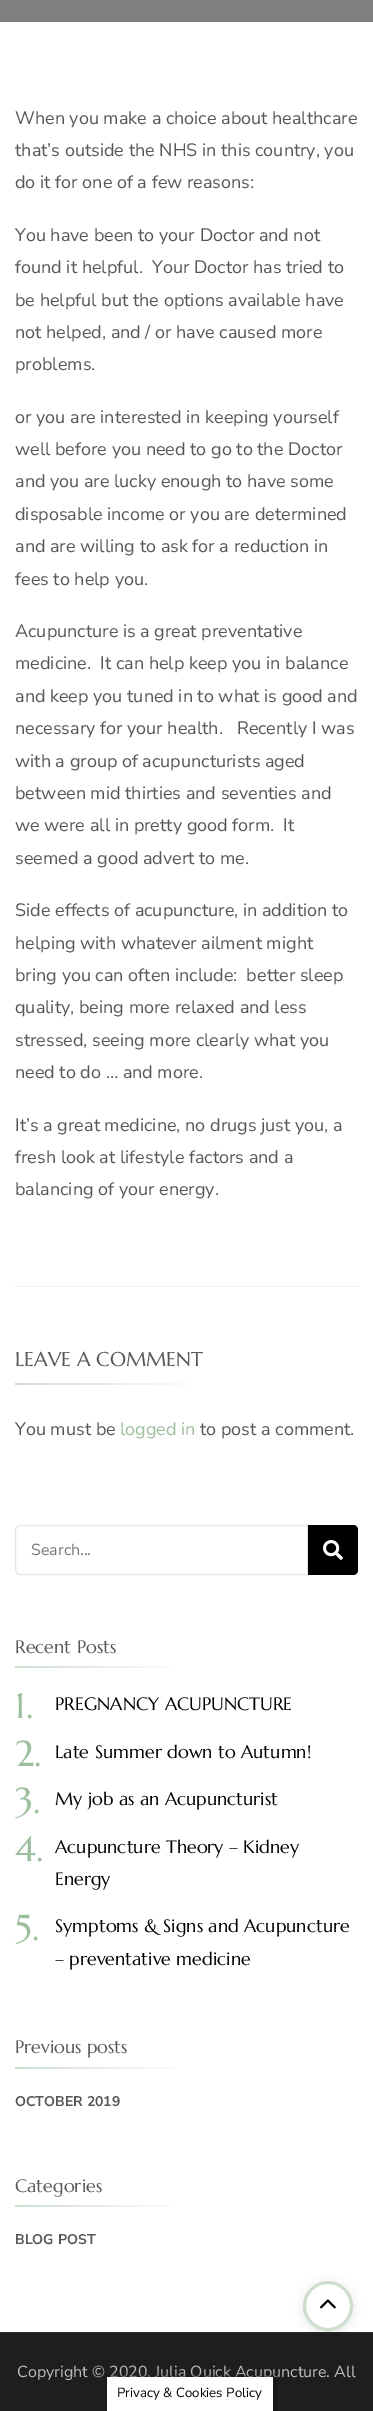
%!PS-Adobe-3.0
%%BoundingBox: 0 0 373 2411
%%LanguageLevel: 3
%%Pages: 1
%%EndComments
%%BeginProlog
/setink { 3 { 255 div 3 1 roll } repeat setrgbcolor } def
/usefont { [ exch dup neg 0 0 3 -1 roll 0 0 ] selectfont } def
/drawtext { setink usefont moveto show } def
/fillbox { setink rectfill } def
/setalpha { dup .setfillconstantalpha .setstrokeconstantalpha } def
/disc { newpath 0 360 arc closepath } def
/rrect { 5 dict begin { /r /h /w /y /x } { exch def } forall
  x r add y moveto x w add y 2 copy h add r arct x w add y h add x 1 index r arct
  x y h add x y r arct x y 2 copy exch w add exch r arct closepath end } def
/softshadow { 12 dict begin { /a /b /q /h /w /y /x } { exch def } forall gsave /was 0 def
  9 -2 -9 { dup b mul 4 div /e exch def 1 sub .425 mul 2.718 exch exp 1 add a .99 .min exch div /now exch def
    1 1 now sub 1 was sub div sub setalpha /was now def
    w h .min e 2 mul add 0 gt { x e sub y e sub w e 2 mul add h e 2 mul add
      q e add b .6 mul add w h .min 2 div e add .min 0 .max rrect fill } if } for grestore end } def
/drawimage { 5 dict begin { /h /w /y /x /name } { exch def } forall
  gsave x y translate w h scale
  w h 8 [w 0 0 h 0 0] name (r) file false 3 colorimage grestore end } def
%%EndProlog
%%BeginSetup
<< /PageSize [373 2411] /PageUsesTransparency true >> setpagedevice
%%EndSetup
%%Page: 1 1
0 .pushpdf14devicefilter
0 2411 translate 1 -1 scale
4 setmiterlimit
0 0 373 2411 255 255 255 fillbox
0 0 373 22 128 128 128 fillbox
(When you make a choice about healthcare) 15 124 /NunitoSans-Regular 18 88 86 86 drawtext
(that’s outside the NHS in this country, you) 15 156 /NunitoSans-Regular 18 88 86 86 drawtext
(do it for one of a few reasons:) 15 188 /NunitoSans-Regular 18 88 86 86 drawtext
(You have been to your Doctor and not) 15 241 /NunitoSans-Regular 18 88 86 86 drawtext
(found it helpful.) 15 273 /NunitoSans-Regular 18 88 86 86 drawtext
(Your Doctor has tried to) 152 273 /NunitoSans-Regular 18 88 86 86 drawtext
(be helpful but the options available have) 15 306 /NunitoSans-Regular 18 88 86 86 drawtext
(not helped, and / or have caused more) 15 338 /NunitoSans-Regular 18 88 86 86 drawtext
(problems.) 15 370 /NunitoSans-Regular 18 88 86 86 drawtext
(or you are interested in keeping yourself) 15 423 /NunitoSans-Regular 18 88 86 86 drawtext
(well before you need to go to the Doctor) 15 455 /NunitoSans-Regular 18 88 86 86 drawtext
(and you are lucky enough to have some) 15 487 /NunitoSans-Regular 18 88 86 86 drawtext
(disposable income or you are determined) 15 520 /NunitoSans-Regular 18 88 86 86 drawtext
(and are willing to ask for a reduction in) 15 552 /NunitoSans-Regular 18 88 86 86 drawtext
(fees to help you.) 15 585 /NunitoSans-Regular 18 88 86 86 drawtext
(Acupuncture is a great preventative) 15 637 /NunitoSans-Regular 18 88 86 86 drawtext
(medicine.  It can help keep you in balance) 15 669 /NunitoSans-Regular 18 88 86 86 drawtext
(and keep you tuned in to what is good and) 15 702 /NunitoSans-Regular 18 88 86 86 drawtext
(necessary for your health.   Recently I was) 15 734 /NunitoSans-Regular 18 88 86 86 drawtext
(with a group of acupuncturists aged) 15 767 /NunitoSans-Regular 18 88 86 86 drawtext
(between mid thirties and seventies and) 15 799 /NunitoSans-Regular 18 88 86 86 drawtext
(we were all in pretty good form.  It) 15 831 /NunitoSans-Regular 18 88 86 86 drawtext
(seemed a good advert to me.) 15 864 /NunitoSans-Regular 18 88 86 86 drawtext
(Side effects of acupuncture, in addition to) 15 916 /NunitoSans-Regular 18 88 86 86 drawtext
(helping with whatever ailment might) 15 949 /NunitoSans-Regular 18 88 86 86 drawtext
(bring you can often include:  better sleep) 15 981 /NunitoSans-Regular 18 88 86 86 drawtext
(quality, being more relaxed and less) 15 1013 /NunitoSans-Regular 18 88 86 86 drawtext
(stressed, seeing more clearly what you) 15 1046 /NunitoSans-Regular 18 88 86 86 drawtext
(need to do … and more.) 15 1078 /NunitoSans-Regular 18 88 86 86 drawtext
(It’s a great medicine, no drugs just you, a) 15 1131 /NunitoSans-Regular 18 88 86 86 drawtext
(fresh look at lifestyle factors and a) 15 1163 /NunitoSans-Regular 18 88 86 86 drawtext
(balancing of your energy.) 15 1195 /NunitoSans-Regular 18 88 86 86 drawtext
15 1286 343 1 240 240 240 fillbox
(LEAVE A COMMENT) 15 1366 /Marcellus-Regular 20 88 86 86 drawtext
gsave 15 1383 moveto 193 1383 lineto 193 1385 lineto 15 1385 lineto closepath clip newpath
<< /ShadingType 2 /ColorSpace /DeviceRGB /Coords [15 1384 203 1384] /Extend [true true] /Function << /FunctionType 2 /Domain [0 1] /C0 [0.808 0.875 0.808] /C1 [1 1 1] /N 1 >> >> shfill grestore
(You must be) 15 1435 /NunitoSans-Regular 18 88 86 86 drawtext
(logged in) 120 1435 /NunitoSans-Regular 18 156 190 156 drawtext
(to post a comment.) 200 1435 /NunitoSans-Regular 18 88 86 86 drawtext
230 230 230 setink
20 1525.5 moveto 307.5 1525.5 lineto 307.5 1574.5 lineto 20 1574.5 lineto 17.5 1574.5 15.5 1572.5 15.5 1570 curveto 15.5 1530 lineto 15.5 1527.5 17.5 1525.5 20 1525.5 curveto closepath stroke
(Search...) 31 1555 /NunitoSans-Regular 16 117 117 117 drawtext
0 0 0 setink
308 1525 moveto 353 1525 lineto 356 1525 358 1527 358 1530 curveto 358 1570 lineto 358 1573 356 1575 353 1575 curveto 308 1575 lineto closepath fill
(assets/img1.rgb) 323 1540 20 20 drawimage
(Recent Posts) 15 1653 /Marcellus-Regular 18 88 86 86 drawtext
gsave 15 1666 moveto 178 1666 lineto 178 1668 lineto 15 1668 lineto closepath clip newpath
<< /ShadingType 2 /ColorSpace /DeviceRGB /Coords [15 1667 358 1667] /Extend [true true] /Function << /FunctionType 3 /Domain [0 1] /Functions [<< /FunctionType 2 /Domain [0 1] /C0 [0.808 0.875 0.808] /C1 [1 1 1] /N 1 >> << /FunctionType 2 /Domain [0 1] /C0 [1 1 1] /C1 [1 1 1] /N 1 >>] /Bounds [0.5] /Encode [0 1 0 1] >> >> shfill grestore
(1.) 15 1718 /Marcellus-Regular 36 156 190 156 drawtext
(PREGNANCY ACUPUNCTURE) 55 1710 /Marcellus-Regular 18 0 0 0 drawtext
(2.) 15 1766 /Marcellus-Regular 36 156 190 156 drawtext
(Late Summer down to Autumn!) 55 1758 /Marcellus-Regular 18 0 0 0 drawtext
(3.) 15 1813 /Marcellus-Regular 36 156 190 156 drawtext
(My job as an Acupuncturist) 55 1805 /Marcellus-Regular 18 0 0 0 drawtext
(4.) 15 1861 /Marcellus-Regular 36 156 190 156 drawtext
(Acupuncture Theory – Kidney) 55 1853 /Marcellus-Regular 18 0 0 0 drawtext
(Energy) 55 1885 /Marcellus-Regular 18 0 0 0 drawtext
(5.) 15 1940 /Marcellus-Regular 36 156 190 156 drawtext
(Symptoms & Signs and Acupuncture) 55 1932 /Marcellus-Regular 18 0 0 0 drawtext
(– preventative medicine) 55 1965 /Marcellus-Regular 18 0 0 0 drawtext
(Previous posts) 15 2053 /Marcellus-Regular 18 88 86 86 drawtext
gsave 15 2067 moveto 178 2067 lineto 178 2069 lineto 15 2069 lineto closepath clip newpath
<< /ShadingType 2 /ColorSpace /DeviceRGB /Coords [15 2068 358 2068] /Extend [true true] /Function << /FunctionType 3 /Domain [0 1] /Functions [<< /FunctionType 2 /Domain [0 1] /C0 [0.808 0.875 0.808] /C1 [1 1 1] /N 1 >> << /FunctionType 2 /Domain [0 1] /C0 [1 1 1] /C1 [1 1 1] /N 1 >>] /Bounds [0.5] /Encode [0 1 0 1] >> >> shfill grestore
(OCTOBER 2019) 15 2106 /NunitoSans-Bold 14 88 86 86 drawtext
(Categories) 15 2192 /Marcellus-Regular 18 88 86 86 drawtext
gsave 15 2205 moveto 178 2205 lineto 178 2207 lineto 15 2207 lineto closepath clip newpath
<< /ShadingType 2 /ColorSpace /DeviceRGB /Coords [15 2206 358 2206] /Extend [true true] /Function << /FunctionType 3 /Domain [0 1] /Functions [<< /FunctionType 2 /Domain [0 1] /C0 [0.808 0.875 0.808] /C1 [1 1 1] /N 1 >> << /FunctionType 2 /Domain [0 1] /C0 [1 1 1] /C1 [1 1 1] /N 1 >>] /Bounds [0.5] /Encode [0 1 0 1] >> >> shfill grestore
(BLOG POST) 15 2244 /NunitoSans-Bold 14 88 86 86 drawtext
0 2333 373 78 30 30 30 fillbox
0 2332 373 1 41 41 41 fillbox
0 0 0 setink
303 2283 50 50 25 5 0.1 softshadow
255 255 255 setink
328 2306 25 disc fill
0.5 setalpha
156 190 156 setink
3 setlinewidth
328 2306 23.5 disc stroke
1 setalpha
(assets/img2.rgb) 320 2299 16 10 drawimage
(Copyright © 2020, Julia Quick Acupuncture. All) 17 2377 /NunitoSans-Regular 16 188 188 188 drawtext
22 22 22 setink
107 2377 170 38 0 2.5 1 softshadow
107 2377 166 34 255 255 255 fillbox
(Privacy & Cookies Policy) 117 2397 /NunitoSans-Regular 13.25 0 0 0 drawtext
.poppdf14devicefilter showpage
%%EOF
